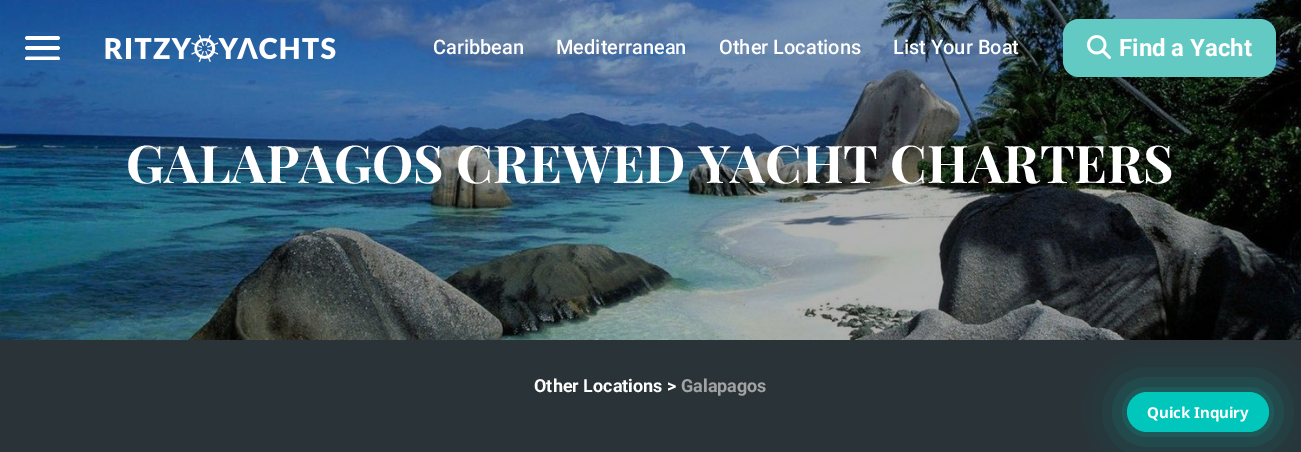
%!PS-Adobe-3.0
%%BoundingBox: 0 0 1301 452
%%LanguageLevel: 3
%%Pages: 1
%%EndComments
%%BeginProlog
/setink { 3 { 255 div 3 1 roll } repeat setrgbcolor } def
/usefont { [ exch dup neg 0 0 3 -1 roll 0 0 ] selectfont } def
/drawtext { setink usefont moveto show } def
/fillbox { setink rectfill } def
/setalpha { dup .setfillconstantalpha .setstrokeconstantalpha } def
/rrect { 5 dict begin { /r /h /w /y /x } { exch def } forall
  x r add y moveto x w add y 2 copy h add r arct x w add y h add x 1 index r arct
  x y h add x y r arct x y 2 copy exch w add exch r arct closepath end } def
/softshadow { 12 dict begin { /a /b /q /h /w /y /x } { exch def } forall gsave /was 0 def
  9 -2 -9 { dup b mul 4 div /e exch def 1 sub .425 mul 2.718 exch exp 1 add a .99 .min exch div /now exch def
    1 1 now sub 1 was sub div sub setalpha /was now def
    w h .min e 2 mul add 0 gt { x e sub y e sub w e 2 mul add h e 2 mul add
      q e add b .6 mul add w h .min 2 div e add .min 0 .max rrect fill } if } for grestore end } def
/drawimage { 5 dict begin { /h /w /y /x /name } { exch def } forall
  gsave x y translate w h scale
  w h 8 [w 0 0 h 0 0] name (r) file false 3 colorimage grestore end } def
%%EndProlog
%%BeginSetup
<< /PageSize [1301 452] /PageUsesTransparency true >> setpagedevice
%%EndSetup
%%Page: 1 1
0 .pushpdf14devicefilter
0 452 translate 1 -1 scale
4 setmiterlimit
0 0 1301 452 41 51 56 fillbox
(assets/img3.rgb) 0 0 1301 340 drawimage
gsave
25 36 35 24 rectclip
255 255 255 setink
3.7 setlinewidth
1 setlinecap
1 setlinejoin
27 58.5 moveto 58 58.5 lineto 27 48 moveto 58 48 lineto 27 38 moveto 58 38 lineto stroke
grestore
(assets/img1.rgb) 105 35 231 27 drawimage
(Caribbean) 433 54 /Roboto-Medium 20 255 255 255 drawtext
(Mediterranean) 556 54 /Roboto-Medium 20 255 255 255 drawtext
(Other Locations) 719 54 /Roboto-Medium 20 255 255 255 drawtext
(List Your Boat) 893 54 /Roboto-Medium 20 255 255 255 drawtext
98 202 194 setink
1063 19 213 58 16 rrect fill
(assets/img2.rgb) 1087 35 24 24 drawimage
(Find a Yacht) 1119 56 /Roboto-Bold 24 255 255 255 drawtext
(GALAPAGOS CREWED YACHT CHARTERS) 126 183 /PlayfairDisplay-Bold 52.1 255 255 255 drawtext
(Other Locations >) 534 392 /Roboto-Bold 18 255 255 255 drawtext
(Galapagos) 681 392 /Roboto-Bold 18 163 163 163 drawtext
0 198 187 setink
1127 392 142 40 20 20 0.5 softshadow
1127 392 142 40 20 rrect fill
(Quick Inquiry) 1147 418 /NotoSans-Bold 15 255 255 255 drawtext
.poppdf14devicefilter showpage
%%EOF
